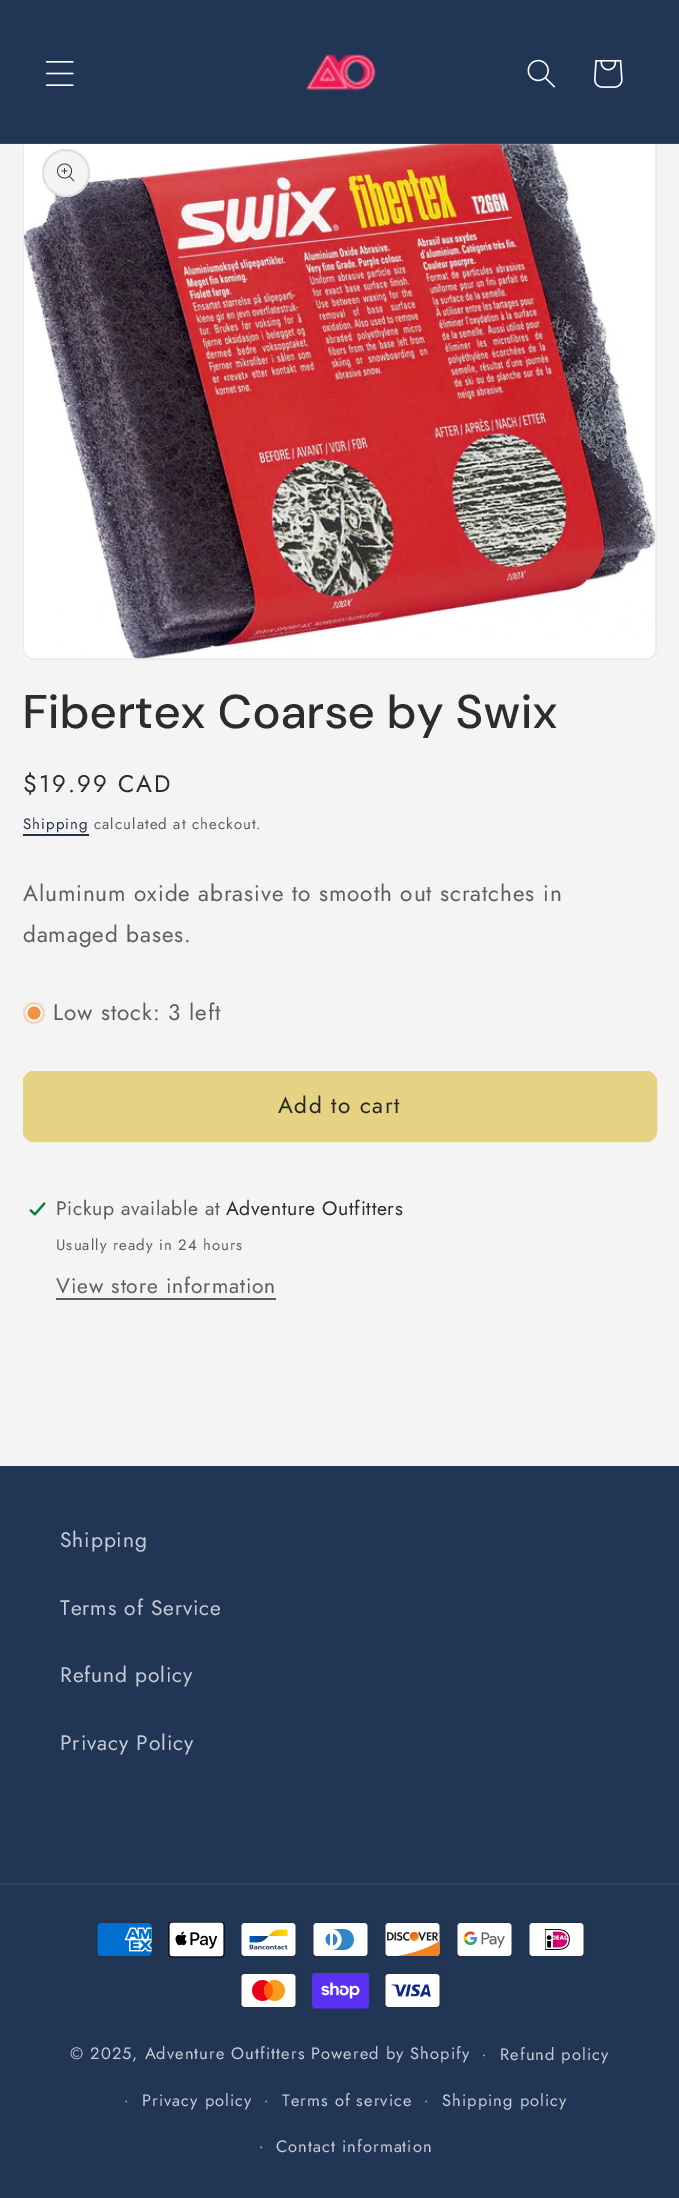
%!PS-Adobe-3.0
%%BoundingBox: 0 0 679 2198
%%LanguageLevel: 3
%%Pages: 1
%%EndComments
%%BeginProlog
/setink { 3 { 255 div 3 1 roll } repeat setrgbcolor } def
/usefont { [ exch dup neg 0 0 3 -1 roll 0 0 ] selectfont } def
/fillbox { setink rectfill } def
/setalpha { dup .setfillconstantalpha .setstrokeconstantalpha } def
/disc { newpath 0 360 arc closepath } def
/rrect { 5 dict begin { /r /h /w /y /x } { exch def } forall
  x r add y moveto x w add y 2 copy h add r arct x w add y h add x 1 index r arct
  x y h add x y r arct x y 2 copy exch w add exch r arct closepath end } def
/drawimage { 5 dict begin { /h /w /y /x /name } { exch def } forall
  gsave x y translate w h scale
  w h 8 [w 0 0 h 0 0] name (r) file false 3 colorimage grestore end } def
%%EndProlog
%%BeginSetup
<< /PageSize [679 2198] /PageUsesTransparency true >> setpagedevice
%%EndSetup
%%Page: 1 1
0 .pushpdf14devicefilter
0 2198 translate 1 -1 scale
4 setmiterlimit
0 0 679 2198 244 244 244 fillbox
234 234 234 setink
2 setlinewidth
24 130 632 529 11 rrect stroke
0 0 679 144 33 53 85 fillbox
(assets/img5.rgb) 24 144 632 515 drawimage
0.08 setalpha
0 143 679 2 255 255 255 fillbox
1 setalpha
(assets/img1.rgb) 45 61 29 25 drawimage
(assets/img2.rgb) 305 53 71 38 drawimage
(assets/img3.rgb) 527 59 28 29 drawimage
(assets/img4.rgb) 594 60 29 28 drawimage
244 244 244 setink
66 173 24 disc fill
0.1 setalpha
43 44 45 setink
66 173 23 disc stroke
1 setalpha
(assets/img6.rgb) 57 163 18 19 drawimage
/DMSans-Medium 47.25 usefont
23 728 moveto 0.95 0 (Fibertex Coarse by Swix) ashow
/Jost-Regular 24 usefont
23 792 moveto 2 0 ($19.99 CAD) ashow
/Jost-Regular 15 usefont
37 51 71 setink
23 829 moveto 1.05 0 (Shipping) ashow
23 834 66 2 37 51 71 fillbox
93 94 95 setink
94 829 moveto 1.05 0 (calculated at checkout.) ashow
/Jost-Regular 22.5 usefont
23 901 moveto 0.9 0 (Aluminum oxide abrasive to smooth out scratches in) ashow
23 942 moveto 0.9 0 (damaged bases.) ashow
242 215 190 setink
34 1013 11 disc fill
238 148 65 setink
34 1013 7.5 disc gsave fill grestore
255 255 255 setink
1.5 setlinewidth
stroke
93 94 95 setink
53 1020 moveto 0.9 0 (Low stock: 3 left) ashow
229 210 131 setink
23 1071 634 71 11 rrect fill
2 setlinewidth
24 1072 632 69 10 rrect stroke
38 38 38 setink
278 1113 moveto 1.5 0 (Add to cart) ashow
(assets/img7.rgb) 28 1201 19 16 drawimage
/Jost-Regular 19.5 usefont
93 94 95 setink
56 1215 moveto 0.6 0 (Pickup available at) ashow
43 44 45 setink
226 1215 moveto 0.6 0 (Adventure Outfitters) ashow
/Jost-Regular 15 usefont
93 94 95 setink
56 1250 moveto 1.05 0 (Usually ready in 24 hours) ashow
/Jost-Regular 21 usefont
56 1293 moveto 0.9 0 (View store information) ashow
56 1298 220 2 93 94 95 fillbox
0 1466 679 732 33 53 85 fillbox
200 205 213 setink
60 1547 moveto 0.9 0 (Shipping) ashow
60 1615 moveto 0.9 0 (Terms of Service) ashow
60 1682 moveto 0.9 0 (Refund policy) ashow
60 1750 moveto 0.9 0 (Privacy Policy) ashow
0 1883 679 2 51 69 99 fillbox
(assets/img8.rgb) 96 1922 57 35 drawimage
(assets/img9.rgb) 168 1922 57 36 drawimage
(assets/img10.rgb) 240 1922 57 35 drawimage
(assets/img11.rgb) 312 1922 57 35 drawimage
(assets/img12.rgb) 384 1922 57 35 drawimage
(assets/img13.rgb) 456 1922 57 35 drawimage
(assets/img14.rgb) 528 1922 57 35 drawimage
(assets/img15.rgb) 240 1973 57 35 drawimage
(assets/img16.rgb) 312 1973 57 36 drawimage
(assets/img17.rgb) 384 1973 57 35 drawimage
/Jost-Regular 16.5 usefont
200 205 213 setink
70 2059 moveto 1.05 0 (© 2025, Adventure Outfitters) ashow
311 2059 moveto 1.05 0 (Powered by Shopify) ashow
/Jost-Regular 15 usefont
482 2059 moveto 1.05 0 (·) ashow
/Jost-Regular 16.5 usefont
500 2060 moveto 1.05 0 (Refund policy) ashow
/Jost-Regular 15 usefont
124 2105 moveto 1.05 0 (·) ashow
/Jost-Regular 16.5 usefont
142 2106 moveto 1.05 0 (Privacy policy) ashow
/Jost-Regular 15 usefont
264 2105 moveto 1.05 0 (·) ashow
/Jost-Regular 16.5 usefont
282 2106 moveto 1.05 0 (Terms of service) ashow
/Jost-Regular 15 usefont
424 2105 moveto 1.05 0 (·) ashow
/Jost-Regular 16.5 usefont
442 2106 moveto 1.05 0 (Shipping policy) ashow
/Jost-Regular 15 usefont
259 2151 moveto 1.05 0 (·) ashow
/Jost-Regular 16.5 usefont
276 2152 moveto 1.05 0 (Contact information) ashow
.poppdf14devicefilter showpage
%%EOF
